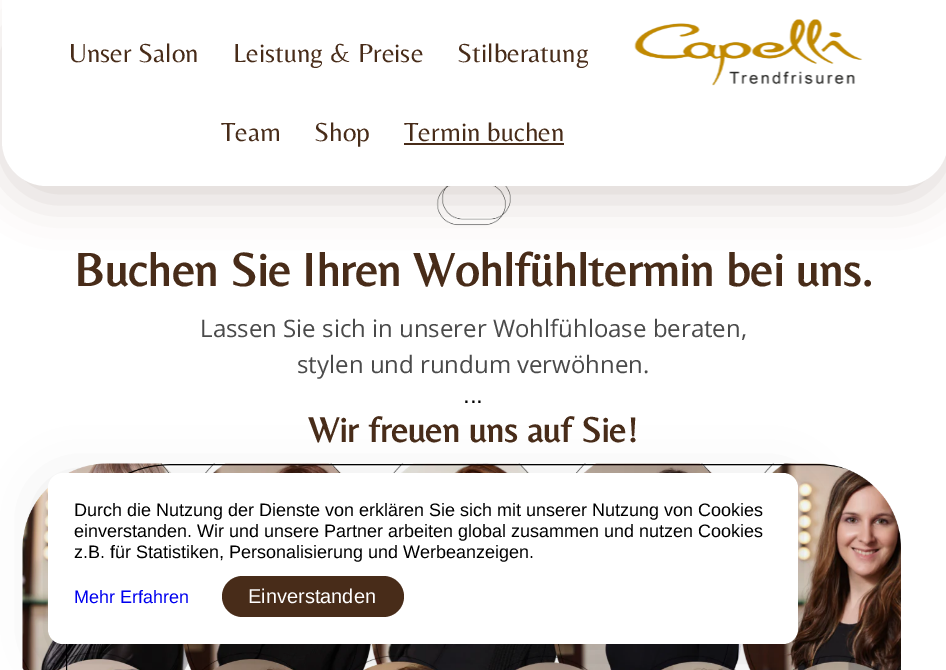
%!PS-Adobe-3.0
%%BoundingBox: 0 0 946 670
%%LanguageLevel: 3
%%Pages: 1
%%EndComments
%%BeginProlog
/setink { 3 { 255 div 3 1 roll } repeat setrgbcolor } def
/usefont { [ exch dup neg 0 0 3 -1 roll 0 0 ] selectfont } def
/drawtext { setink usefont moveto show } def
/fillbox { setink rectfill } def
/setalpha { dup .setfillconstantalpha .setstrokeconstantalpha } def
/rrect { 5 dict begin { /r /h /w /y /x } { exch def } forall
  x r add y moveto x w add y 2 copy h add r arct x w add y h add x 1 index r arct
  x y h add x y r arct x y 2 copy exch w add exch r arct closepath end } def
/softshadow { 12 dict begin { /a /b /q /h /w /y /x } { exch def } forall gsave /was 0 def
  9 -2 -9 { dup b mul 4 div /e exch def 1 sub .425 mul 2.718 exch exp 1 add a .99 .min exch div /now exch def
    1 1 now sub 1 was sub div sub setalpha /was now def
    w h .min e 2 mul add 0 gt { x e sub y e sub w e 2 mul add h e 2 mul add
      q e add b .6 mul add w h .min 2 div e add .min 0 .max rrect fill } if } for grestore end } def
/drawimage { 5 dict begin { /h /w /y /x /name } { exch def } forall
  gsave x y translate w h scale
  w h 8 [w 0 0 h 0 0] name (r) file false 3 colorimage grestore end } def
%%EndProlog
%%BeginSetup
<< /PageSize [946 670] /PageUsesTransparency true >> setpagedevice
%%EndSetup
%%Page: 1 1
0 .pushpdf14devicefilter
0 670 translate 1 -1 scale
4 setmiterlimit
0 0 946 670 255 255 255 fillbox
(assets/img2.rgb) 436 186 75 40 drawimage
gsave
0 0 moveto 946 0 lineto 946 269 lineto 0 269 lineto closepath 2 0 moveto 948 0 lineto 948 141 lineto 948 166 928 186 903 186 curveto 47 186 lineto 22 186 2 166 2 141 curveto closepath eoclip newpath
72 44 25 setink
2 14 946 186 45 22.5 0.19 softshadow
grestore
2 0 moveto 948 0 lineto 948 141 lineto 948 166 928 186 903 186 curveto 47 186 lineto 22 186 2 166 2 141 curveto closepath fill
(Unser Salon) 69 62 /Belleza-Regular 27 72 44 25 drawtext
(Leistung & Preise) 233 62 /Belleza-Regular 27 72 44 25 drawtext
(Stilberatung) 457 62 /Belleza-Regular 27 72 44 25 drawtext
(assets/img1.rgb) 634 19 229 67 drawimage
(Team) 221 141 /Belleza-Regular 27 72 44 25 drawtext
(Shop) 314 141 /Belleza-Regular 27 72 44 25 drawtext
(Termin buchen) 404 141 /Belleza-Regular 27 72 44 25 drawtext
404 143 160 2 72 44 25 fillbox
(Buchen Sie Ihren Wohlfühltermin bei uns.) 74 286 /Belleza-Bold 48 72 44 25 drawtext
(Lassen Sie sich in unserer Wohlfühloase beraten,) 200 337 /OpenSans-Regular 24 74 74 74 drawtext
(stylen und rundum verwöhnen.) 297 373 /OpenSans-Regular 24 74 74 74 drawtext
(...) 463 403 /LiberationSans-Regular 24 0 0 0 drawtext
(Wir freuen uns auf Sie!) 308 442 /Belleza-Bold 36 72 44 25 drawtext
(assets/img3.rgb) 22 463 879 207 drawimage
0 0 0 setink
50 489 747 168 14 28.5 0.13 softshadow
255 255 255 setink
48 473 750 171 15 rrect fill
(Durch die Nutzung der Dienste von erklären Sie sich mit unserer Nutzung von Cookies) 74 516 /LiberationSans-Regular 18 0 0 0 drawtext
(einverstanden. Wir und unsere Partner arbeiten global zusammen und nutzen Cookies) 74 537 /LiberationSans-Regular 18 0 0 0 drawtext
(z.B. für Statistiken, Personalisierung und Werbeanzeigen.) 74 558 /LiberationSans-Regular 18 0 0 0 drawtext
(Mehr Erfahren) 74 603 /LiberationSans-Regular 18 0 0 238 drawtext
72 44 25 setink
222 576 182 41 20.5 rrect fill
(Einverstanden) 248 603 /LiberationSans-Regular 20 255 255 255 drawtext
.poppdf14devicefilter showpage
%%EOF
